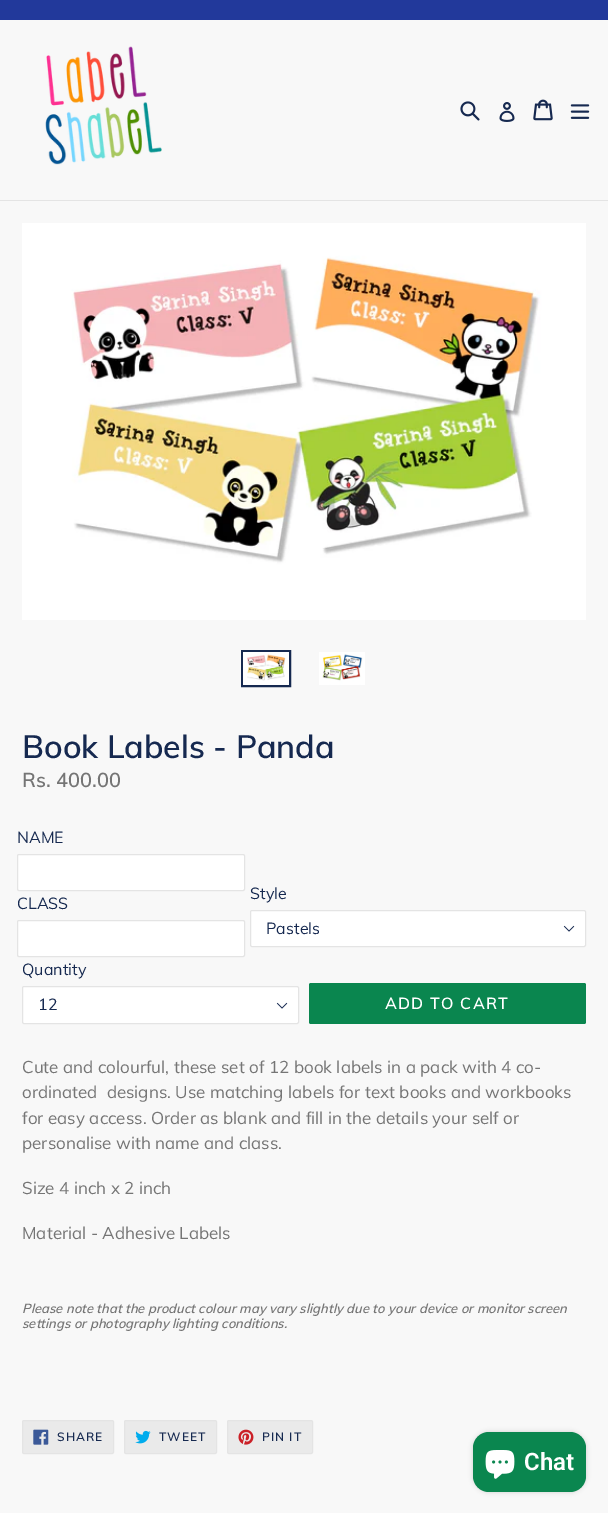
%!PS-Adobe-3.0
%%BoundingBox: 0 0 608 1513
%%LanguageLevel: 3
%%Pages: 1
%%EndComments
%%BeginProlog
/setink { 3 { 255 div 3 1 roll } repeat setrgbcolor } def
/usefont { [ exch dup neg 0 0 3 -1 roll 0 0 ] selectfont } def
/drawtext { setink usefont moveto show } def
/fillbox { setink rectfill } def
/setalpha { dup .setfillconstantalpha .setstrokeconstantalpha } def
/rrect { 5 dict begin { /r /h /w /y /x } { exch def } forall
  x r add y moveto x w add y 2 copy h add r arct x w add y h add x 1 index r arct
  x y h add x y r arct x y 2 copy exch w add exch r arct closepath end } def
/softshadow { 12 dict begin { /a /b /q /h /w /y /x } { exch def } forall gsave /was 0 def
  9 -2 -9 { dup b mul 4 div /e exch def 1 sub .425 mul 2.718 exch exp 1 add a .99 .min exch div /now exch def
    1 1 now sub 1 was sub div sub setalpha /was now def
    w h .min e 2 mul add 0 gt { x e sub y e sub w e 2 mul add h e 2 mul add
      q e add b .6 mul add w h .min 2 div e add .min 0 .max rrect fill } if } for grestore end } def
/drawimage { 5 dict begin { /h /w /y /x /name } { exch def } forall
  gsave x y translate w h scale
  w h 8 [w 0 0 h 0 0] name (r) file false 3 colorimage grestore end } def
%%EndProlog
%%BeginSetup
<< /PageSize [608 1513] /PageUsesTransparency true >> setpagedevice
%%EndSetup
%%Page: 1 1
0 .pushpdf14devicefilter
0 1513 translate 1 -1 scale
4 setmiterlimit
0 0 608 1513 248 248 248 fillbox
0 0 608 20 34 57 155 fillbox
0 200 608 1 228 228 228 fillbox
(assets/img1.rgb) 45 46 117 119 drawimage
(assets/img2.rgb) 460 101 20 20 drawimage
(assets/img3.rgb) 499 102 16 20 drawimage
(assets/img4.rgb) 533 99 20 22 drawimage
(assets/img5.rgb) 570 104 20 15 drawimage
(assets/img6.rgb) 22 223 564 397 drawimage
22 41 80 setink
2 setlinewidth
242 651 48 35 rectstroke
(assets/img7.rgb) 243 652 46 33 drawimage
(assets/img8.rgb) 319 652 46 33 drawimage
(Book Labels - Panda) 22 758 /Muli-SemiBold 32 22 41 80 drawtext
(Rs. 400.00) 22 787 /Muli-SemiBold 20 117 117 117 drawtext
(NAME) 17 843 /Muli-Regular 16 22 41 80 drawtext
255 255 255 setink
17.5 854.5 227 36 1.5 rrect gsave fill grestore
228 228 228 setink
1 setlinewidth
stroke
(CLASS) 17 909 /Muli-Regular 16 22 41 80 drawtext
255 255 255 setink
17.5 920.5 227 36 1.5 rrect gsave fill grestore
228 228 228 setink
stroke
(Style) 250 899 /Muli-Regular 16 22 41 80 drawtext
255 255 255 setink
250 910 336 37 2 rrect fill
(assets/img9.rgb) 563 925 12 7 drawimage
228 228 228 setink
250.5 910.5 335 36 1.5 rrect stroke
(Pastels) 266 934 /Muli-Regular 16 22 41 80 drawtext
(Quantity) 22 975 /Muli-Regular 16 22 41 80 drawtext
255 255 255 setink
22 986 277 38 2 rrect fill
(assets/img9.rgb) 276 1002 12 7 drawimage
228 228 228 setink
22.5 986.5 276 37 1.5 rrect stroke
(12) 38 1010 /Muli-Regular 16 22 41 80 drawtext
10 134 79 setink
309 983 277 41 2 rrect fill
/Muli-SemiBold 16 usefont
255 255 255 setink
385 1009 moveto 1.25 0 (ADD TO CART) ashow
(Cute and colourful, these set of 12 book labels in a pack with 4 co-) 22 1073 /Muli-Regular 17 117 117 117 drawtext
(ordinated  designs. Use matching labels for text books and workbooks) 22 1098 /Muli-Regular 17 117 117 117 drawtext
(for easy access. Order as blank and fill in the details your self or) 22 1124 /Muli-Regular 17 117 117 117 drawtext
(personalise with name and class.) 22 1149 /Muli-Regular 17 117 117 117 drawtext
(Size 4 inch x 2 inch) 22 1194 /Muli-Regular 17 117 117 117 drawtext
(Material - Adhesive Labels) 22 1239 /Muli-Regular 17 117 117 117 drawtext
(Please note that the product colour may vary slightly due to your device or monitor screen) 22 1313 /Muli-SemiBoldItalic 13 117 117 117 drawtext
(settings or photography lighting conditions.) 22 1328 /Muli-SemiBoldItalic 13 117 117 117 drawtext
234 234 234 setink
22.5 1420.5 91 33 1.5 rrect gsave fill grestore
228 228 228 setink
stroke
(assets/img10.rgb) 33 1429 16 16 drawimage
/Muli-SemiBold 12 usefont
22 41 80 setink
57 1441 moveto 1 0 (SHARE) ashow
234 234 234 setink
124.5 1420.5 92 33 1.5 rrect gsave fill grestore
228 228 228 setink
stroke
(assets/img11.rgb) 135 1430 16 14 drawimage
22 41 80 setink
159 1441 moveto 1 0 (TWEET) ashow
234 234 234 setink
227.5 1420.5 85 33 1.5 rrect gsave fill grestore
228 228 228 setink
stroke
(assets/img12.rgb) 238 1429 16 16 drawimage
22 41 80 setink
262 1441 moveto 1 0 (PIN IT) ashow
0 0 0 setink
473 1432 113 60 16 2.5 0.15 softshadow
10 134 79 setink
473 1432 113 60 16 rrect fill
(assets/img13.rgb) 485 1450 30 29 drawimage
(Chat) 524 1470 /Roboto-SemiBold 24 255 255 255 drawtext
.poppdf14devicefilter showpage
%%EOF
